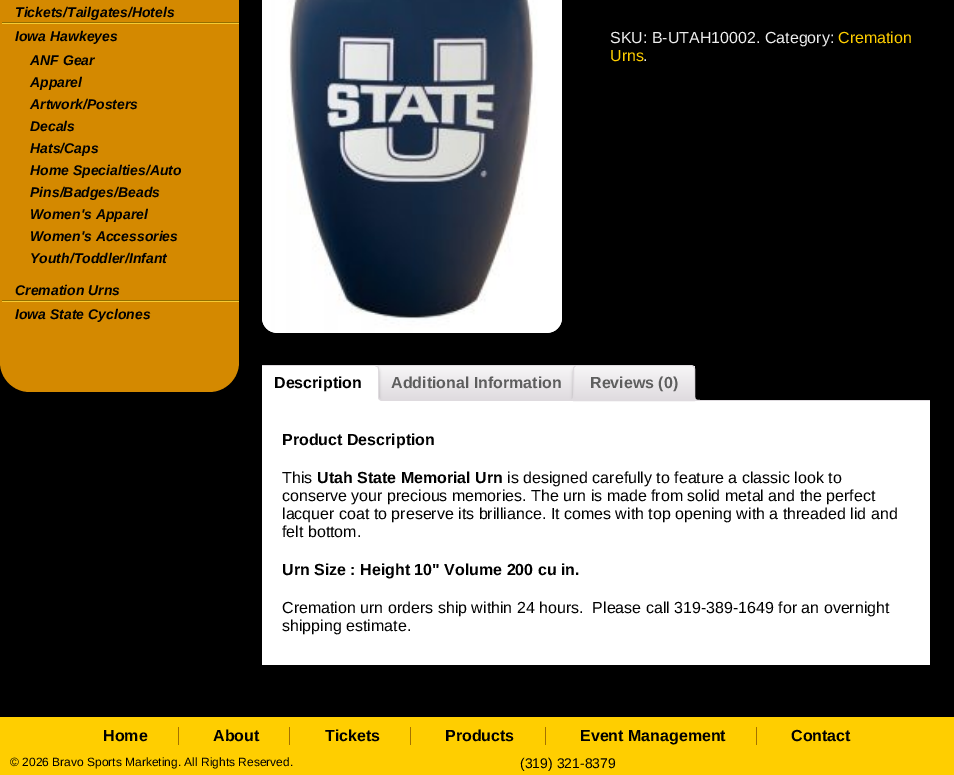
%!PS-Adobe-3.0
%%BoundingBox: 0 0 954 775
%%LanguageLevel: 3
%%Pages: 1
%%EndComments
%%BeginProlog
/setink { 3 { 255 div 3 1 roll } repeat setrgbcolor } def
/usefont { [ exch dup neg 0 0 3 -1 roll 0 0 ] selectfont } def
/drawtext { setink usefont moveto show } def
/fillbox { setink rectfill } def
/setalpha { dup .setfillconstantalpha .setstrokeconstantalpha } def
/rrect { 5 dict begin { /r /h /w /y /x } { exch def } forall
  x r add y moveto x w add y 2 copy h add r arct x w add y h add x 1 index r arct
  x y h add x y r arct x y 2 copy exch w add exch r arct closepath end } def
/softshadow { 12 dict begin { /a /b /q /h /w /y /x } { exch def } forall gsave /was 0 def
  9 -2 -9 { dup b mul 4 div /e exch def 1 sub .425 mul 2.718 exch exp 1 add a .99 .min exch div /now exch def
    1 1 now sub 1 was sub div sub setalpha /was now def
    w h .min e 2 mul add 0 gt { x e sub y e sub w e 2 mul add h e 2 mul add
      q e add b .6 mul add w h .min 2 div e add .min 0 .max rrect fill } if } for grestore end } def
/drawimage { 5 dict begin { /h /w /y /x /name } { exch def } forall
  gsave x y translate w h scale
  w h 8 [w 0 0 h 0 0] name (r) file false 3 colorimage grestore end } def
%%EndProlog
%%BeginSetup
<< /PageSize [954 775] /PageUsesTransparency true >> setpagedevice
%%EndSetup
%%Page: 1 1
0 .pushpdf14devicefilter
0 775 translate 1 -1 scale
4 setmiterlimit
0 0 954 775 255 206 0 fillbox
0 0 954 717 0 0 0 fillbox
212 137 0 setink
0 -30 239 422 30 rrect fill
(assets/img1.rgb) 2 22 237 2 drawimage
(Tickets/Tailgates/Hotels) 15 17 /LiberationSans-BoldItalic 14 0 0 0 drawtext
(Iowa Hawkeyes) 15 41 /LiberationSans-BoldItalic 14 0 0 0 drawtext
(ANF Gear) 30 65 /LiberationSans-BoldItalic 14 0 0 0 drawtext
(Apparel) 30 87 /LiberationSans-BoldItalic 14 0 0 0 drawtext
(Artwork/Posters) 30 109 /LiberationSans-BoldItalic 14 0 0 0 drawtext
(Decals) 30 131 /LiberationSans-BoldItalic 14 0 0 0 drawtext
(Hats/Caps) 30 153 /LiberationSans-BoldItalic 14 0 0 0 drawtext
(Home Specialties/Auto) 30 175 /LiberationSans-BoldItalic 14 0 0 0 drawtext
(Pins/Badges/Beads) 30 197 /LiberationSans-BoldItalic 14 0 0 0 drawtext
(Women's Apparel) 30 219 /LiberationSans-BoldItalic 14 0 0 0 drawtext
(Women's Accessories) 30 241 /LiberationSans-BoldItalic 14 0 0 0 drawtext
(Youth/Toddler/Infant) 30 263 /LiberationSans-BoldItalic 14 0 0 0 drawtext
(assets/img1.rgb) 2 300 237 2 drawimage
(Cremation Urns) 15 295 /LiberationSans-BoldItalic 14 0 0 0 drawtext
(Iowa State Cyclones) 15 319 /LiberationSans-BoldItalic 14 0 0 0 drawtext
255 255 255 setink
262 -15 300 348 15 rrect fill
(assets/img2.rgb) 262 0 300 333 drawimage
(SKU: B-UTAH10002. Category:) 610 43 /LiberationSans-Regular 16 238 238 238 drawtext
(Cremation) 838 43 /LiberationSans-Regular 16 255 206 0 drawtext
(Urns) 610 61 /LiberationSans-Regular 16 255 206 0 drawtext
(.) 643 61 /LiberationSans-Regular 16 238 238 238 drawtext
gsave 377 366 moveto 575 366 lineto 575 400 lineto 377 400 lineto closepath clip newpath
<< /ShadingType 2 /ColorSpace /DeviceRGB /Coords [476 366 476 400] /Extend [true true] /Function << /FunctionType 2 /Domain [0 1] /C0 [0.969 0.965 0.969] /C1 [0.875 0.859 0.875] /N 1 >> >> shfill grestore
252 251 252 setink
378 367 moveto 574 367 lineto 576 367 577 368 577 370 curveto 577 368 576 366 574 366 curveto 378 366 lineto 376 366 375 368 375 370 curveto 375 368 376 367 378 367 curveto closepath fill
223 219 223 setink
378 365.5 moveto 574 365.5 lineto 576 365.5 577.5 367 577.5 369 curveto 577.5 400.5 lineto 374.5 400.5 lineto 374.5 369 lineto 374.5 367 376 365.5 378 365.5 curveto closepath stroke
262 401 668 264 255 255 255 fillbox
gsave
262 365 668 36 rectclip
0 0 0 setink
257 368 122 36 4 1.5 0.2 softshadow
grestore
262 365 moveto 375 365 lineto 377 365 379 367 379 369 curveto 379 401 lineto 262 401 lineto closepath fill
gsave
262 365 668 36 rectclip
223 219 223 setink
261 365 moveto 258 366 lineto 259 367 lineto 261 366 lineto 375 366 lineto 377 367 lineto 378 366 lineto 375 365 lineto closepath fill
grestore
223 219 223 setink
379 401 moveto 379 369 lineto 379 368 378.5 367 378 366 curveto 377 367 lineto 378 367 378 368 378 369 curveto 378 400 lineto closepath fill
gsave
262 365 668 36 rectclip
255 255 255 setink
379 401 moveto 378 400 lineto 258 400 lineto 257 401 lineto closepath fill
grestore
(Description) 274 388 /LiberationSans-Bold 16 0 0 0 drawtext
gsave
262 365 668 36 rectclip
255 255 255 setink
376 397 moveto 376 402 377 403 382 403 curveto 382 401 lineto 380 401 378 399 378 397 curveto closepath fill
grestore
223 219 223 setink
378 395 moveto 384 395 lineto 384 401 lineto 381.5 401 378 400.5 378 397 curveto closepath 379 395 moveto 384 395 lineto 384 400 lineto 382 400 379 400 379 397 curveto closepath eofill
(Additional Information) 391 388 /LiberationSans-Bold 16 94 94 94 drawtext
gsave
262 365 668 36 rectclip
0 0 0 setink
573 368 122 36 4 1.5 0.2 softshadow
grestore
gsave
577 365 moveto 691 365 lineto 693 365 695 367 695 369 curveto 695 401 lineto 573 401 lineto 573 369 lineto 573 367 575 365 577 365 curveto closepath clip newpath
gsave 573 366 moveto 695 366 lineto 695 400 lineto 573 400 lineto closepath clip newpath
<< /ShadingType 2 /ColorSpace /DeviceRGB /Coords [634 366 634 400] /Extend [true true] /Function << /FunctionType 2 /Domain [0 1] /C0 [0.969 0.965 0.969] /C1 [0.875 0.859 0.875] /N 1 >> >> shfill grestore
grestore
gsave
262 365 668 36 rectclip
0.6 setalpha
255 255 255 setink
577 367 moveto 691 367 lineto 693 367 694 368 694 370 curveto 694 368 693 366 691 366 curveto 596 366 lineto 595 366 574 361 574 370 curveto 574 368 575 367 577 367 curveto closepath fill
grestore
223 219 223 setink
577 365.5 moveto 691 365.5 lineto 693 365.5 694.5 367 694.5 369 curveto 694.5 400.5 lineto 573.5 400.5 lineto 573.5 369 lineto 573.5 367 575 365.5 577 365.5 curveto closepath stroke
(Reviews \(0\)) 590 388 /LiberationSans-Bold 16 94 94 94 drawtext
gsave
262 365 668 36 rectclip
223 219 223 setink
570 401 moveto 570 403 lineto 575 403 576 402 576 397 curveto 574 397 lineto 574 399 572 401 570 401 curveto closepath fill
grestore
223 219 223 setink
568 395 moveto 574 395 lineto 574 400 573 401 568 401 curveto closepath 568 395 moveto 573 395 lineto 573 399 572 400 568 400 curveto closepath eofill
gsave
262 365 668 36 rectclip
692 397 moveto 692 402 693 403 698 403 curveto 698 401 lineto 696 401 694 399 694 397 curveto closepath fill
grestore
694 395 moveto 700 395 lineto 700 401 lineto 697.5 401 694 400.5 694 397 curveto closepath 695 395 moveto 700 395 lineto 700 400 lineto 698 400 695 400 695 397 curveto closepath eofill
695 400 235 1 223 219 223 fillbox
(Product Description) 282 445 /LiberationSans-Bold 16 0 0 0 drawtext
(This) 282 483 /LiberationSans-Regular 16 0 0 0 drawtext
(Utah State Memorial Urn) 317 483 /LiberationSans-Bold 16 0 0 0 drawtext
(is designed carefully to feature a classic look to) 507 483 /LiberationSans-Regular 16 0 0 0 drawtext
(conserve your precious memories. The urn is made from solid metal and the perfect) 282 501 /LiberationSans-Regular 16 0 0 0 drawtext
(lacquer coat to preserve its brilliance. It comes with top opening with a threaded lid and) 282 519 /LiberationSans-Regular 16 0 0 0 drawtext
(felt bottom.) 282 537 /LiberationSans-Regular 16 0 0 0 drawtext
(Urn Size : Height 10" Volume 200 cu in.) 282 575 /LiberationSans-Bold 16 0 0 0 drawtext
(Cremation urn orders ship within 24 hours.  Please call 319-389-1649 for an overnight) 282 613 /LiberationSans-Regular 16 0 0 0 drawtext
(shipping estimate.) 282 631 /LiberationSans-Regular 16 0 0 0 drawtext
178 727 1 18 164 114 0 fillbox
(Home) 103 741 /LiberationSans-Bold 16 0 0 0 drawtext
289 727 1 18 164 114 0 fillbox
(About) 213 741 /LiberationSans-Bold 16 0 0 0 drawtext
410 727 1 18 164 114 0 fillbox
(Tickets) 325 741 /LiberationSans-Bold 16 0 0 0 drawtext
545 727 1 18 164 114 0 fillbox
(Products) 445 741 /LiberationSans-Bold 16 0 0 0 drawtext
756 727 1 18 164 114 0 fillbox
(Event Management) 580 741 /LiberationSans-Bold 16 0 0 0 drawtext
(Contact) 791 741 /LiberationSans-Bold 16 0 0 0 drawtext
(© 2026 Bravo Sports Marketing. All Rights Reserved.) 10 766 /LiberationSans-Regular 12 0 0 0 drawtext
(\(319\) 321-8379) 520 768 /LiberationSans-Regular 14 0 0 0 drawtext
.poppdf14devicefilter showpage
%%EOF
